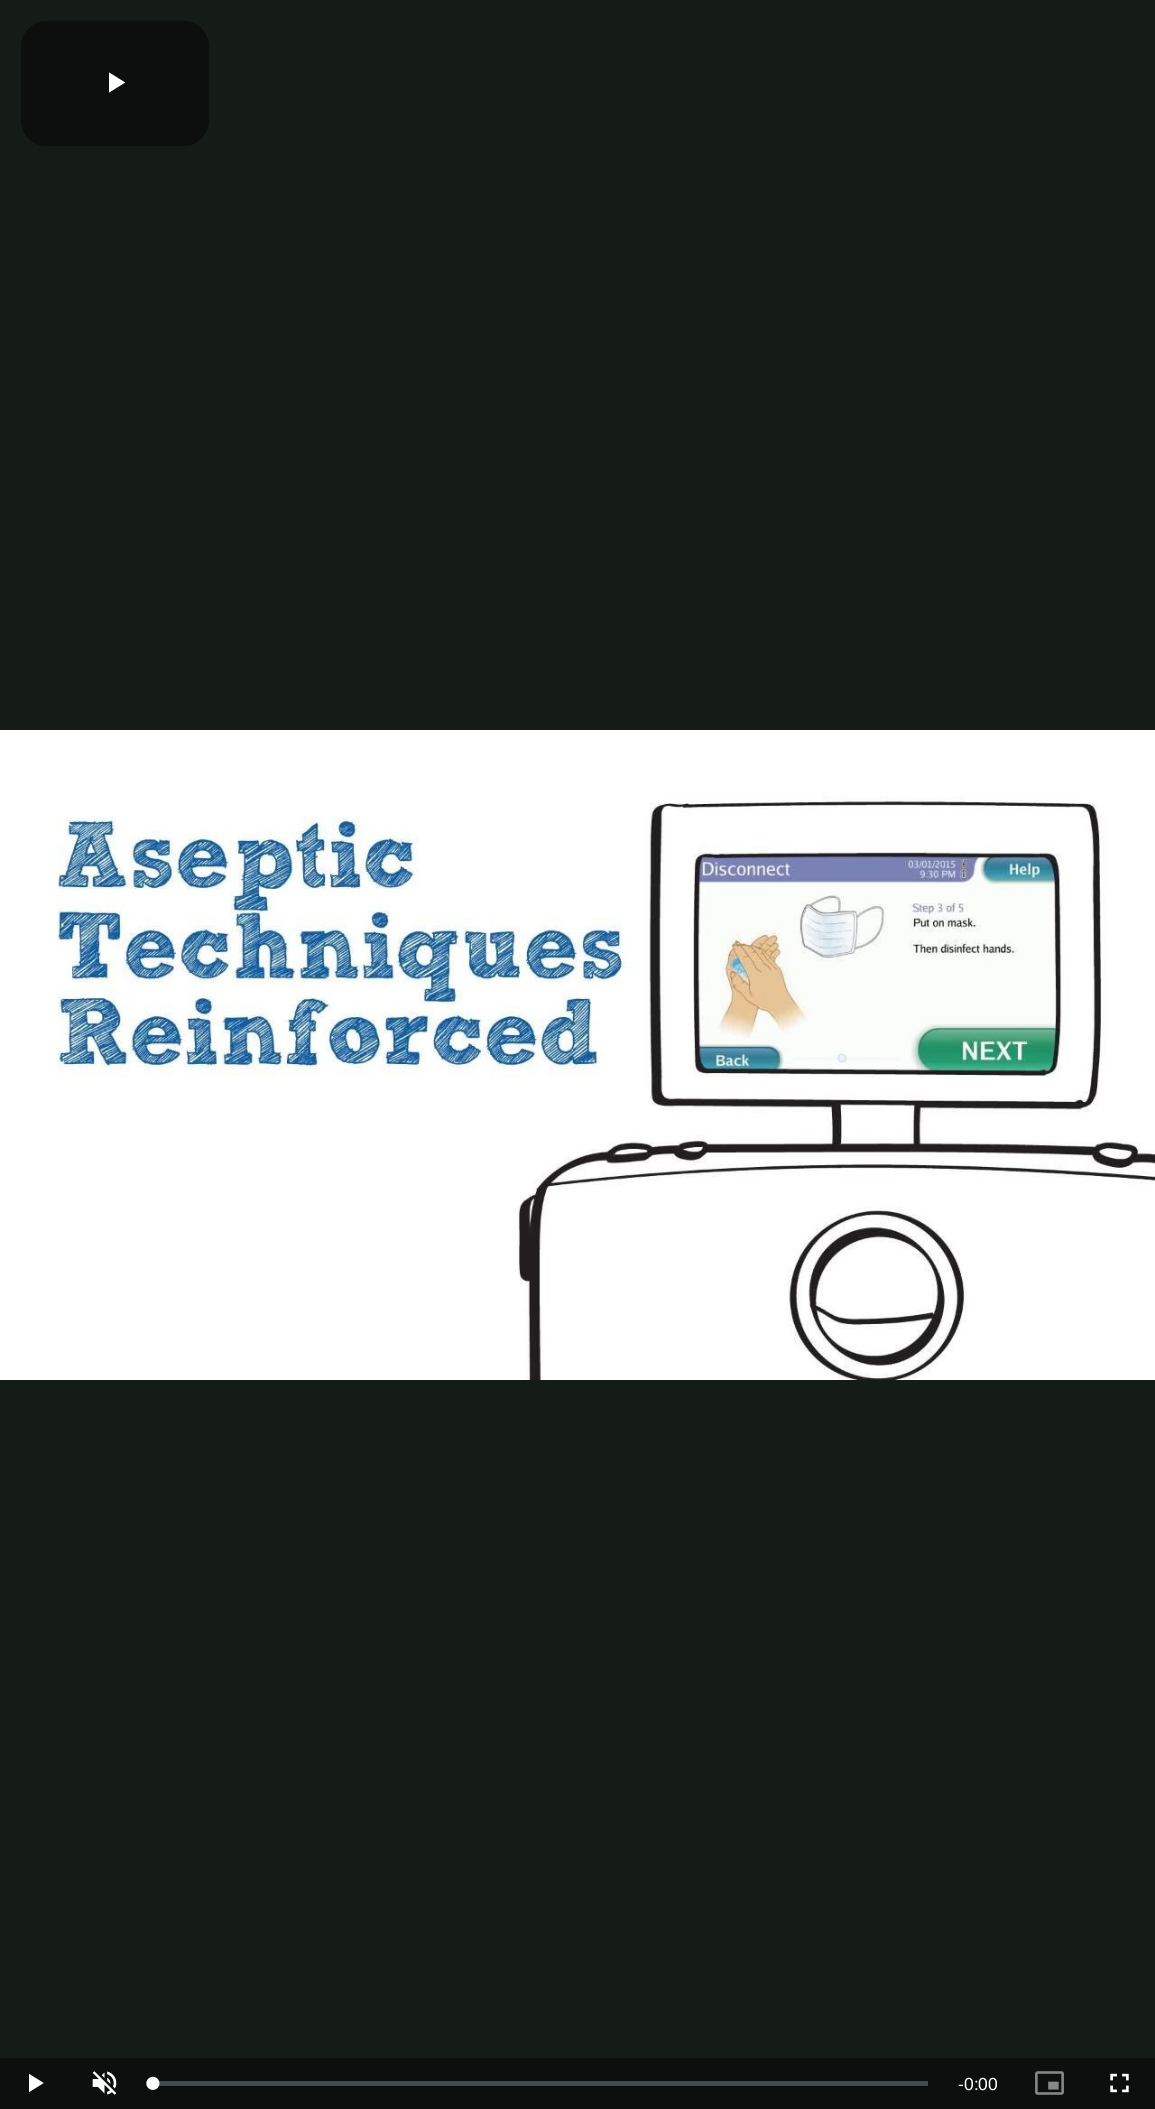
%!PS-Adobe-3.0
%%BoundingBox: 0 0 1155 2109
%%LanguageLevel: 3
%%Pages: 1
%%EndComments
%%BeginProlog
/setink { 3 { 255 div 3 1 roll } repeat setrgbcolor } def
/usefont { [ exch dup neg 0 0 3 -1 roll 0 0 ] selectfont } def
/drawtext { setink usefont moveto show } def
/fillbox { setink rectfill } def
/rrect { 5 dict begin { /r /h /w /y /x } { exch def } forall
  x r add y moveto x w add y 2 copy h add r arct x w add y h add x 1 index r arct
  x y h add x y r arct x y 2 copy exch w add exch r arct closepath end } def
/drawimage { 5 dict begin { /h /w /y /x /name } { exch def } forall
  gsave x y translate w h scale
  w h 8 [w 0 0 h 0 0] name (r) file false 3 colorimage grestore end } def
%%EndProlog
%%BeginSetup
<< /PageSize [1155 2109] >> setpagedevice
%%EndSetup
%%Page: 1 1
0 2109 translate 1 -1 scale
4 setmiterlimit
0 0 1155 2109 21 27 23 fillbox
12 15 13 setink
21 21 188 125 26 rrect fill
255 255 255 setink
109 72.5 moveto 109 92.5 lineto 125 82.5 lineto closepath fill
(assets/img1.rgb) 0 730 1155 650 drawimage
0 2058 1155 51 12 15 13 fillbox
255 255 255 setink
29 2074 moveto 29 2092 lineto 43.5 2083 lineto closepath fill
(assets/img2.rgb) 92 2071 25 24 drawimage
153 2081 775 5 64 74 86 fillbox
(assets/img3.rgb) 146 2076 14 14 drawimage
(-0:00) 958 2090 /LiberationSans-Regular 17.5 255 255 255 drawtext
(assets/img4.rgb) 1035 2071 29 24 drawimage
(assets/img5.rgb) 1110 2073 19 20 drawimage
showpage
%%EOF
